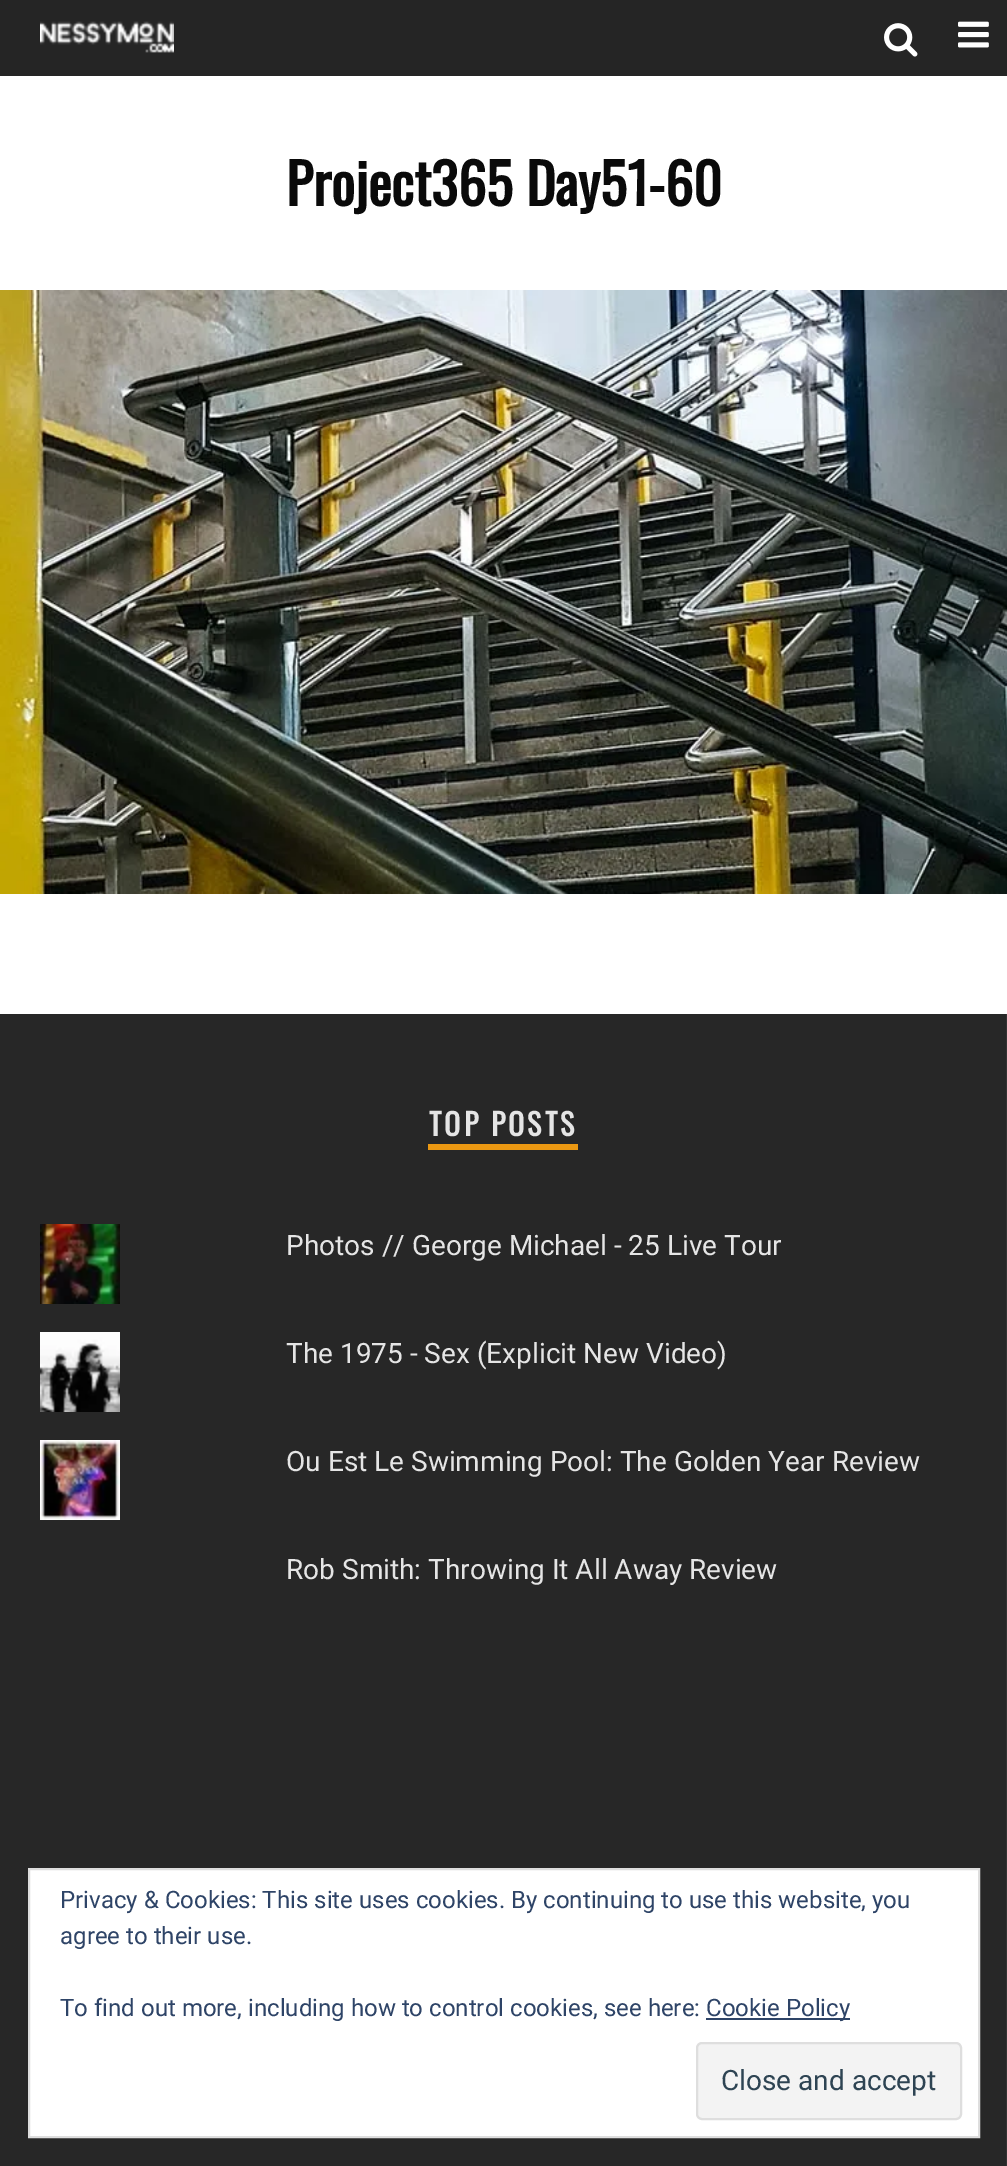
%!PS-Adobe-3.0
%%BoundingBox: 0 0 1007 2166
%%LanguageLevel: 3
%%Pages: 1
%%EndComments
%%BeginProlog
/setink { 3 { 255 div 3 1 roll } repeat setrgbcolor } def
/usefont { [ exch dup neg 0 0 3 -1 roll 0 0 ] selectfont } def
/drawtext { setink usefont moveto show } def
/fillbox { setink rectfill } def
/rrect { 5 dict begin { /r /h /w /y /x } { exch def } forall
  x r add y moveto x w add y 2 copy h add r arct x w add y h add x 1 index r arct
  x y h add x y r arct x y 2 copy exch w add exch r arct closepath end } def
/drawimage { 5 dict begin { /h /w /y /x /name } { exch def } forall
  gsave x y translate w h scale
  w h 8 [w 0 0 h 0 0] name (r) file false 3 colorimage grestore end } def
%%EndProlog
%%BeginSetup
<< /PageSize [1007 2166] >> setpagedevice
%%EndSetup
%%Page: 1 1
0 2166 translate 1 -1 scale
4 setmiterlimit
0 0 1007 2166 255 255 255 fillbox
0 0 1007 76 37 37 37 fillbox
(assets/img1.rgb) 40 21 134 32 drawimage
(assets/img2.rgb) 884 23 34 34 drawimage
(assets/img3.rgb) 958 21 31 27 drawimage
(Project365 Day51-60) 286 206 /Oswald-Bold 56 10 10 10 drawtext
(assets/img4.rgb) 0 290 1007 604 drawimage
0 1014 1006 1152 39 39 39 fillbox
1006 1014 1 1152 51 51 51 fillbox
/Oswald-Bold 30 usefont
229 229 229 setink
429 1136 moveto 3 0 (TOP POSTS) ashow
428 1144 150 6 235 152 18 fillbox
(assets/img5.rgb) 40 1224 80 80 drawimage
(Photos // George Michael - 25 Live Tour) 286 1255 /Roboto-Regular 28 229 229 229 drawtext
(assets/img6.rgb) 40 1332 80 80 drawimage
(The 1975 - Sex \(Explicit New Video\)) 286 1363 /Roboto-Regular 28 229 229 229 drawtext
(assets/img7.rgb) 40 1440 80 80 drawimage
(Ou Est Le Swimming Pool: The Golden Year Review) 286 1471 /Roboto-Regular 28 229 229 229 drawtext
(Rob Smith: Throwing It All Away Review) 286 1579 /Roboto-Regular 28 229 229 229 drawtext
255 255 255 setink
29 1869 moveto 979 1869 lineto 979 2137 lineto 29 2137 lineto closepath gsave fill grestore
222 222 222 setink
2 setlinewidth
stroke
(Privacy & Cookies: This site uses cookies. By continuing to use this website, you) 60 1908 /Roboto-Regular 24 46 68 103 drawtext
(agree to their use.) 60 1944 /Roboto-Regular 24 46 68 103 drawtext
(To find out more, including how to control cookies, see here:) 60 2016 /Roboto-Regular 24 46 68 103 drawtext
706 2018 144 2 46 68 103 fillbox
(Cookie Policy) 706 2016 /Roboto-Regular 24 46 68 103 drawtext
243 243 243 setink
697 2043 264 76 5 rrect gsave fill grestore
222 222 222 setink
stroke
(Close and accept) 721 2090 /Roboto-Regular 28 46 68 83 drawtext
showpage
%%EOF
